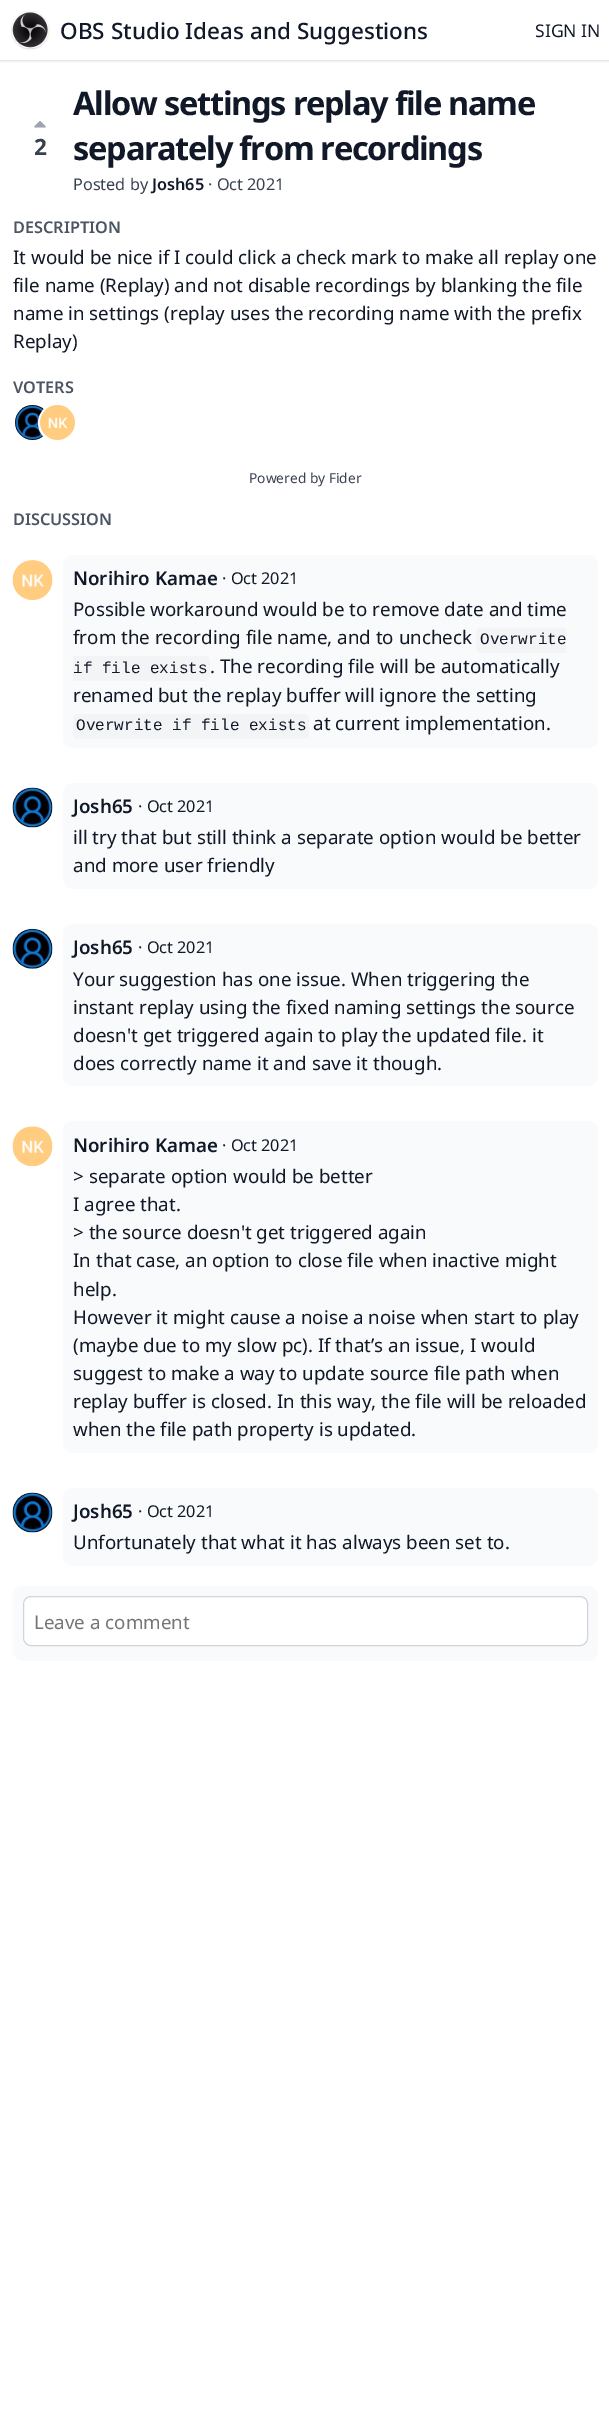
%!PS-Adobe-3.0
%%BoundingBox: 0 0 609 2436
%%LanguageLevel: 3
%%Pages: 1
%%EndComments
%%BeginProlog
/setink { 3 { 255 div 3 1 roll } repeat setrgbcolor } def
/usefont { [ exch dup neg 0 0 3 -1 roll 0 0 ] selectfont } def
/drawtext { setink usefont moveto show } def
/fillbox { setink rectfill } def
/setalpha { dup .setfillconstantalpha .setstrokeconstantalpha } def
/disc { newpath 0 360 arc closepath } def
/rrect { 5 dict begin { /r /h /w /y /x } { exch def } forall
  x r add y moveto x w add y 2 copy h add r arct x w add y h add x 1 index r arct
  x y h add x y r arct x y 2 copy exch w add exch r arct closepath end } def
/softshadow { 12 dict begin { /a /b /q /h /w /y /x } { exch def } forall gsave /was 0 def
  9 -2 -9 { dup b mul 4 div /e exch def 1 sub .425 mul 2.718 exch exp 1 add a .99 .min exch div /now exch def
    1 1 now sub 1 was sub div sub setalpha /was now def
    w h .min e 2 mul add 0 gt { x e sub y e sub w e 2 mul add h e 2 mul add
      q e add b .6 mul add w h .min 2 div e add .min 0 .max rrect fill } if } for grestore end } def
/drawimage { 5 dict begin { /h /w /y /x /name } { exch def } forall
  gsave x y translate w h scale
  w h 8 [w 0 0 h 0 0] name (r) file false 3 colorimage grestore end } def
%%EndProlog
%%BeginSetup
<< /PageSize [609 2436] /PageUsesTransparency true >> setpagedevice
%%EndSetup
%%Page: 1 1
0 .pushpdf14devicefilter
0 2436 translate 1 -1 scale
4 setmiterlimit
0 0 609 2436 255 255 255 fillbox
gsave
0 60 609 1 rectclip
0 0 0 setink
0 1 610 60 0 1 0.06 softshadow
grestore
gsave
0 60 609 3 rectclip
0 0 0 setink
0 1 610 60 0 2 0.1 softshadow
grestore
(assets/img1.rgb) 11 10 39 40 drawimage
(OBS Studio Ideas and Suggestions) 60 39 /NotoSans-Medium 22.5 17 24 39 drawtext
(SIGN IN) 535 37 /NotoSans-Regular 17.5 17 24 39 drawtext
(assets/img2.rgb) 34 121 12 7 drawimage
(2) 34 155 /NotoSans-Bold 22.5 55 65 81 drawtext
/NotoSans-Bold 32.5 usefont
17 24 39 setink
73 115 moveto -1.25 0 (Allow settings replay file name) ashow
73 160 moveto -1.25 0 (separately from recordings) ashow
(Posted by) 73 190 /NotoSans-Regular 16.25 55 65 81 drawtext
(Josh65) 152 190 /NotoSans-SemiBold 16.25 17 24 39 drawtext
(· Oct 2021) 208 190 /NotoSans-Regular 16.25 55 65 81 drawtext
(DESCRIPTION) 13 233 /NotoSans-SemiBold 16.25 75 85 99 drawtext
(It would be nice if I could click a check mark to make all replay one) 13 264 /NotoSans-Regular 18.75 17 24 39 drawtext
(file name \(Replay\) and not disable recordings by blanking the file) 13 292 /NotoSans-Regular 18.75 17 24 39 drawtext
(name in settings \(replay uses the recording name with the prefix) 13 320 /NotoSans-Regular 18.75 17 24 39 drawtext
(Replay\)) 13 348 /NotoSans-Regular 18.75 17 24 39 drawtext
(VOTERS) 13 393 /NotoSans-SemiBold 16.25 75 85 99 drawtext
(assets/img3.rgb) 15 405 31 35 drawimage
255 255 255 setink
3 setlinewidth
58 423 18.5 disc stroke
(assets/img4.rgb) 40 405 35 35 drawimage
(Powered by Fider) 249 483 /NotoSans-Regular 13.75 55 65 81 drawtext
(DISCUSSION) 13 525 /NotoSans-SemiBold 16.25 75 85 99 drawtext
(assets/img5.rgb) 12 560 41 40 drawimage
249 250 251 setink
63 555 535 193 10 rrect fill
(Norihiro Kamae) 73 585 /NotoSans-SemiBold 18.75 17 24 39 drawtext
(· Oct 2021) 222 584 /NotoSans-Regular 16.25 17 24 39 drawtext
(Possible workaround would be to remove date and time) 73 616 /NotoSans-Regular 18.75 17 24 39 drawtext
(from the recording file name, and to uncheck) 73 644 /NotoSans-Regular 18.75 17 24 39 drawtext
243 244 246 setink
481 628 moveto 566 628 lineto 566 653 lineto 481 653 lineto 478 653 476 651 476 648 curveto 476 633 lineto 476 630 478 628 481 628 curveto closepath fill
(Overwrite) 480 644 /LiberationMono-Regular 16 17 24 39 drawtext
243 244 246 setink
73 656 moveto 205 656 lineto 208 656 210 658 210 661 curveto 210 676 lineto 210 679 208 681 205 681 curveto 73 681 lineto closepath fill
(if file exists) 73 673 /LiberationMono-Regular 16 17 24 39 drawtext
(. The recording file will be automatically) 210 673 /NotoSans-Regular 18.75 17 24 39 drawtext
(renamed but the replay buffer will ignore the setting) 73 702 /NotoSans-Regular 18.75 17 24 39 drawtext
243 244 246 setink
73 714 236 25 5 rrect fill
(Overwrite if file exists) 76 730 /LiberationMono-Regular 16 17 24 39 drawtext
(at current implementation.) 313 730 /NotoSans-Regular 18.75 17 24 39 drawtext
(assets/img6.rgb) 12 787 41 41 drawimage
249 250 251 setink
63 783 535 106 10 rrect fill
(Josh65) 73 813 /NotoSans-SemiBold 18.75 17 24 39 drawtext
(· Oct 2021) 138 812 /NotoSans-Regular 16.25 17 24 39 drawtext
(ill try that but still think a separate option would be better) 73 844 /NotoSans-Regular 18.75 17 24 39 drawtext
(and more user friendly) 73 872 /NotoSans-Regular 18.75 17 24 39 drawtext
(assets/img7.rgb) 12 928 41 41 drawimage
249 250 251 setink
63 924 535 162 10 rrect fill
(Josh65) 73 954 /NotoSans-SemiBold 18.75 17 24 39 drawtext
(· Oct 2021) 138 953 /NotoSans-Regular 16.25 17 24 39 drawtext
(Your suggestion has one issue. When triggering the) 73 986 /NotoSans-Regular 18.75 17 24 39 drawtext
(instant replay using the fixed naming settings the source) 73 1014 /NotoSans-Regular 18.75 17 24 39 drawtext
(doesn't get triggered again to play the updated file. it) 73 1042 /NotoSans-Regular 18.75 17 24 39 drawtext
(does correctly name it and save it though.) 73 1070 /NotoSans-Regular 18.75 17 24 39 drawtext
(assets/img8.rgb) 12 1126 41 41 drawimage
249 250 251 setink
63 1121 535 332 10 rrect fill
(Norihiro Kamae) 73 1152 /NotoSans-SemiBold 18.75 17 24 39 drawtext
(· Oct 2021) 222 1151 /NotoSans-Regular 16.25 17 24 39 drawtext
(> separate option would be better) 73 1183 /NotoSans-Regular 18.75 17 24 39 drawtext
(I agree that.) 73 1211 /NotoSans-Regular 18.75 17 24 39 drawtext
(> the source doesn't get triggered again) 73 1239 /NotoSans-Regular 18.75 17 24 39 drawtext
(In that case, an option to close file when inactive might) 73 1267 /NotoSans-Regular 18.75 17 24 39 drawtext
(help.) 73 1296 /NotoSans-Regular 18.75 17 24 39 drawtext
(However it might cause a noise a noise when start to play) 73 1324 /NotoSans-Regular 18.75 17 24 39 drawtext
(\(maybe due to my slow pc\). If that’s an issue, I would) 73 1352 /NotoSans-Regular 18.75 17 24 39 drawtext
(suggest to make a way to update source file path when) 73 1380 /NotoSans-Regular 18.75 17 24 39 drawtext
(replay buffer is closed. In this way, the file will be reloaded) 73 1408 /NotoSans-Regular 18.75 17 24 39 drawtext
(when the file path property is updated.) 73 1436 /NotoSans-Regular 18.75 17 24 39 drawtext
(assets/img9.rgb) 12 1492 41 41 drawimage
249 250 251 setink
63 1488 535 78 10 rrect fill
(Josh65) 73 1518 /NotoSans-SemiBold 18.75 17 24 39 drawtext
(· Oct 2021) 138 1517 /NotoSans-Regular 16.25 17 24 39 drawtext
(Unfortunately that what it has always been set to.) 73 1549 /NotoSans-Regular 18.75 17 24 39 drawtext
249 250 251 setink
13 1586 585 75 10 rrect fill
255 255 255 setink
23.5 1596.5 564 49 7.5 rrect gsave fill grestore
209 213 219 setink
1 setlinewidth
stroke
(Leave a comment) 34 1629 /NotoSans-Regular 18.75 117 117 117 drawtext
.poppdf14devicefilter showpage
%%EOF
